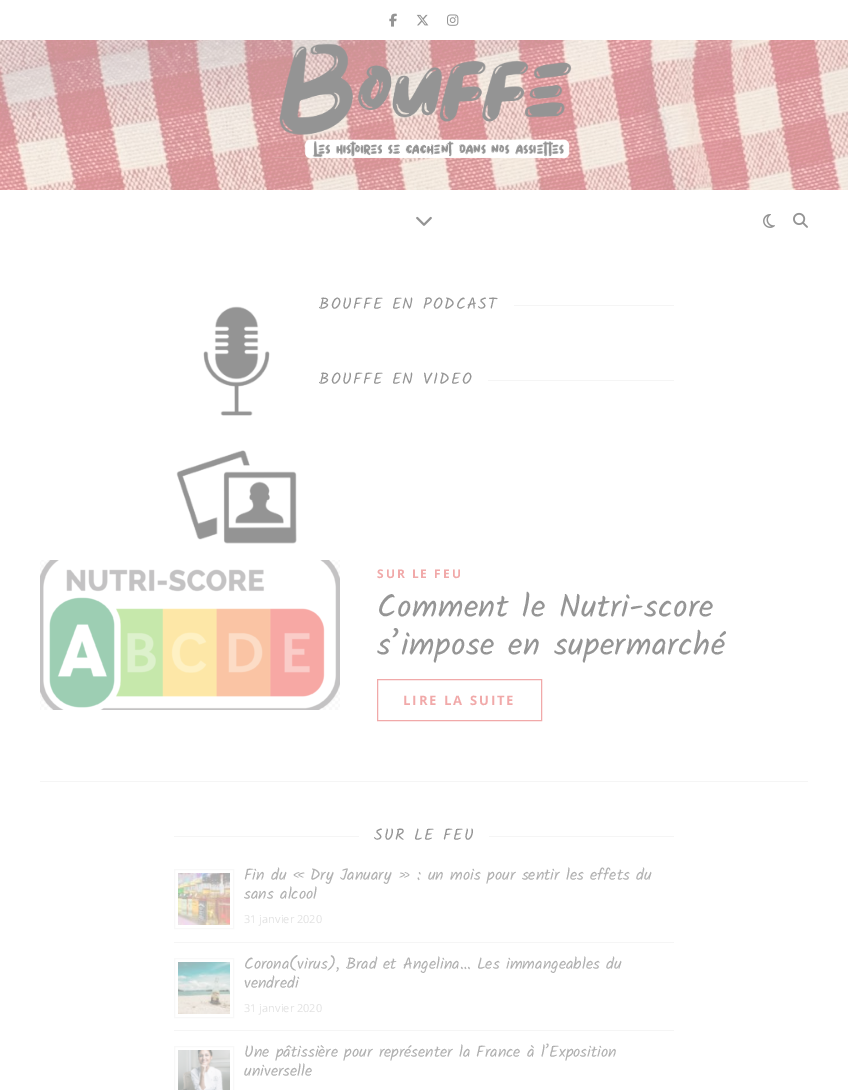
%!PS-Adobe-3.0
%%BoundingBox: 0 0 848 1090
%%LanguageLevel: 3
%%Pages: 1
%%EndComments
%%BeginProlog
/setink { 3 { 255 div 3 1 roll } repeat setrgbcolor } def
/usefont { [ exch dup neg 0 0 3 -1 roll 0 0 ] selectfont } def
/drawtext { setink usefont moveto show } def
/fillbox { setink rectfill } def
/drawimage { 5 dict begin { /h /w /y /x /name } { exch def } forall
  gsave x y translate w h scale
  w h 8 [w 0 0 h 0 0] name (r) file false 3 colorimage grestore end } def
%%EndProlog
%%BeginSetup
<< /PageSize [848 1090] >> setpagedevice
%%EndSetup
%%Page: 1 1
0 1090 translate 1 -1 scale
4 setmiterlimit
0 0 848 1090 255 255 255 fillbox
(assets/img1.rgb) 389 13 8 14 drawimage
(assets/img2.rgb) 416 14 13 12 drawimage
(assets/img3.rgb) 447 14 12 12 drawimage
(assets/img4.rgb) 0 40 848 150 drawimage
(assets/img5.rgb) 274 43 300 116 drawimage
(assets/img6.rgb) 416 216 16 10 drawimage
(assets/img7.rgb) 763 214 12 14 drawimage
(assets/img8.rgb) 793 212 15 16 drawimage
/Kalam-Regular 16 usefont
149 149 149 setink
319 309 moveto 1.5 0 (BOUFFE EN PODCAST) ashow
514 305 160 1 245 245 245 fillbox
(assets/img9.rgb) 203 306 67 110 drawimage
149 149 149 setink
319 384 moveto 1.5 0 (BOUFFE EN VIDEO) ashow
488 380 186 1 245 245 245 fillbox
(assets/img10.rgb) 176 450 121 94 drawimage
40 781 768 1 245 245 245 fillbox
(assets/img11.rgb) 40 560 300 150 drawimage
/OpenSans-Bold 12 usefont
241 169 169 setink
377 578 moveto 2 0 (SUR LE FEU) ashow
/Kalam-Regular 32 usefont
149 149 149 setink
377 617 moveto 0.5 0 (Comment le Nutri-score) ashow
377 655 moveto 0.5 0 (s’impose en supermarché) ashow
241 169 169 setink
377.5 679.5 164 41 rectstroke
/OpenSans-Bold 13 usefont
403 705 moveto 2 0 (LIRE LA SUITE) ashow
174 836 185 1 245 245 245 fillbox
/Kalam-Regular 16 usefont
149 149 149 setink
374 840 moveto 1.5 0 (SUR LE FEU) ashow
489 836 185 1 245 245 245 fillbox
174 942 500 1 245 245 245 fillbox
248 248 248 setink
174.5 869.5 59 59 rectstroke
(assets/img12.rgb) 178 873 52 52 drawimage
(Fin du « Dry January » : un mois pour sentir les effets du) 244 880 /Kalam-Regular 16 177 177 177 drawtext
(sans alcool) 244 899 /Kalam-Regular 16 177 177 177 drawtext
(31 janvier 2020) 244 923 /OpenSans-Regular 11 226 226 226 drawtext
174 1030 500 1 245 245 245 fillbox
248 248 248 setink
174.5 958.5 59 59 rectstroke
(assets/img13.rgb) 178 962 52 52 drawimage
(Corona\(virus\), Brad et Angelina… Les immangeables du) 244 969 /Kalam-Regular 16 177 177 177 drawtext
(vendredi) 244 988 /Kalam-Regular 16 177 177 177 drawtext
(31 janvier 2020) 244 1012 /OpenSans-Regular 11 226 226 226 drawtext
248 248 248 setink
174.5 1046.5 59 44 rectstroke
(assets/img14.rgb) 178 1050 52 40 drawimage
(Une pâtissière pour représenter la France à l’Exposition) 244 1057 /Kalam-Regular 16 177 177 177 drawtext
(universelle) 244 1076 /Kalam-Regular 16 177 177 177 drawtext
showpage
%%EOF
